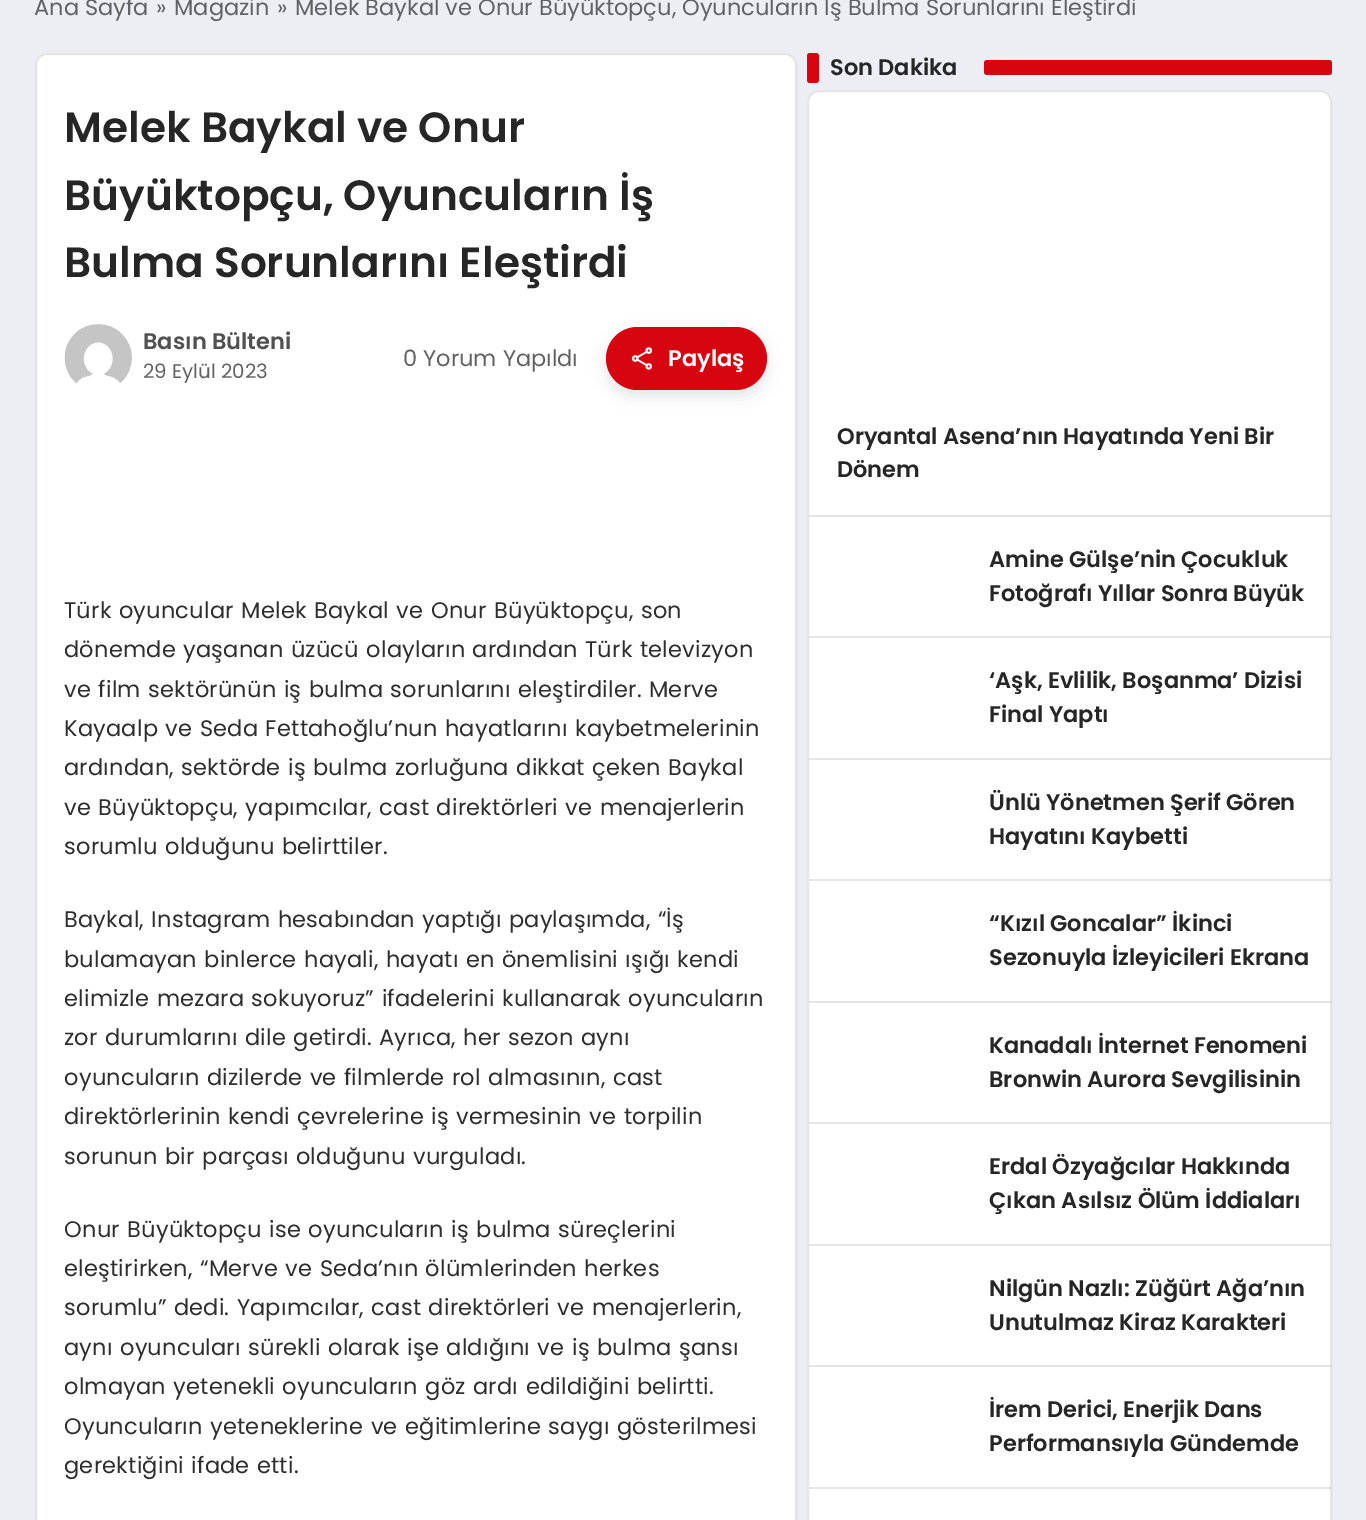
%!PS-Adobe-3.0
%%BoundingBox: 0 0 1366 1520
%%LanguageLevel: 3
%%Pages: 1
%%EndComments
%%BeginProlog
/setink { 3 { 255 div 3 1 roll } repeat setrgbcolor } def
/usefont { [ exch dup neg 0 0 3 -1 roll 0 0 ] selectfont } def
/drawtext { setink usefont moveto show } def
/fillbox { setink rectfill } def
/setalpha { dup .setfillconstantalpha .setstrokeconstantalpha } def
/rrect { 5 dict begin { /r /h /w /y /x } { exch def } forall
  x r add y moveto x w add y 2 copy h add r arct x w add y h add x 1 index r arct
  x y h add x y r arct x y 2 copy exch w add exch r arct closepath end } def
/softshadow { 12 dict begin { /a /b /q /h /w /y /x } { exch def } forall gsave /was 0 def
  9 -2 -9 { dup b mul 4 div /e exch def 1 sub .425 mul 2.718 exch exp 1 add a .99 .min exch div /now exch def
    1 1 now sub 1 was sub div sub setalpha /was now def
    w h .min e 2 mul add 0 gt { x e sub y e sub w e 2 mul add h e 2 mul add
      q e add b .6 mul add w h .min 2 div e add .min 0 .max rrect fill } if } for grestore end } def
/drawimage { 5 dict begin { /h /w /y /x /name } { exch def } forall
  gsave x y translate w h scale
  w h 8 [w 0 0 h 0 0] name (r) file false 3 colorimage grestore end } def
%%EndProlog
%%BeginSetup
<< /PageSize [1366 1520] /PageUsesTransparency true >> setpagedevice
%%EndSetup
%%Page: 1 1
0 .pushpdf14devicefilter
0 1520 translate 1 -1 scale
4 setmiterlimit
0 0 1366 1520 237 237 244 fillbox
(Ana Sayfa) 34 15 /Poppins-Regular 22.5 98 98 100 drawtext
(») 156 15 /Poppins-Regular 22.5 98 98 100 drawtext
(Magazin) 174 15 /Poppins-Regular 22.5 98 98 100 drawtext
(») 277 15 /Poppins-Regular 22.5 98 98 100 drawtext
(Melek Baykal ve Onur Büyüktopçu, Oyuncuların İş Bulma Sorunlarını Eleştirdi) 295 15 /Poppins-Regular 22.5 98 98 100 drawtext
255 255 255 setink
35 53 762 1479 12 rrect fill
0.1 setalpha
0 0 0 setink
2 setlinewidth
36 54 760 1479 11 rrect stroke
1 setalpha
(Melek Baykal ve Onur) 64 142 /Poppins-SemiBold 42.25 38 38 38 drawtext
(Büyüktopçu, Oyuncuların İş) 64 210 /Poppins-SemiBold 42.25 38 38 38 drawtext
(Bulma Sorunlarını Eleştirdi) 64 277 /Poppins-SemiBold 42.25 38 38 38 drawtext
(assets/img1.rgb) 64 324 68 60 drawimage
(Basın Bülteni) 143 349 /Poppins-SemiBold 22.5 81 81 81 drawtext
(29 Eylül 2023) 143 378 /Poppins-Regular 19.75 98 98 100 drawtext
(0 Yorum Yapıldı) 403 366 /Poppins-Regular 22.5 98 98 100 drawtext
107 114 128 setink
606 333 161 63 31.5 7.5 0.2 softshadow
215 5 15 setink
606 327 161 63 31.5 rrect fill
(assets/img2.rgb) 631 347 22 23 drawimage
(Paylaş) 668 366 /Poppins-SemiBold 22.5 255 255 255 drawtext
/Poppins-Regular 22.5 usefont
46 46 46 setink
64 618 moveto 1.1 0 32 0.22 0 (Türk oyuncular Melek Baykal ve Onur Büyüktopçu, son) awidthshow
64 657 moveto 1.1 0 32 0.22 0 (dönemde yaşanan üzücü olayların ardından Türk televizyon) awidthshow
64 697 moveto 1.1 0 32 0.22 0 (ve film sektörünün iş bulma sorunlarını eleştirdiler. Merve) awidthshow
64 736 moveto 1.1 0 32 0.22 0 (Kayaalp ve Seda Fettahoğlu’nun hayatlarını kaybetmelerinin) awidthshow
64 775 moveto 1.1 0 32 0.22 0 (ardından, sektörde iş bulma zorluğuna dikkat çeken Baykal) awidthshow
64 815 moveto 1.1 0 32 0.22 0 (ve Büyüktopçu, yapımcılar, cast direktörleri ve menajerlerin) awidthshow
64 854 moveto 1.1 0 32 0.22 0 (sorumlu olduğunu belirttiler.) awidthshow
64 927 moveto 1.1 0 32 0.22 0 (Baykal, Instagram hesabından yaptığı paylaşımda, “İş) awidthshow
64 967 moveto 1.1 0 32 0.22 0 (bulamayan binlerce hayali, hayatı en önemlisini ışığı kendi) awidthshow
64 1006 moveto 1.1 0 32 0.22 0 (elimizle mezara sokuyoruz” ifadelerini kullanarak oyuncuların) awidthshow
64 1045 moveto 1.1 0 32 0.22 0 (zor durumlarını dile getirdi. Ayrıca, her sezon aynı) awidthshow
64 1085 moveto 1.1 0 32 0.22 0 (oyuncuların dizilerde ve filmlerde rol almasının, cast) awidthshow
64 1124 moveto 1.1 0 32 0.22 0 (direktörlerinin kendi çevrelerine iş vermesinin ve torpilin) awidthshow
64 1164 moveto 1.1 0 32 0.22 0 (sorunun bir parçası olduğunu vurguladı.) awidthshow
64 1237 moveto 1.1 0 32 0.22 0 (Onur Büyüktopçu ise oyuncuların iş bulma süreçlerini) awidthshow
64 1276 moveto 1.1 0 32 0.22 0 (eleştirirken, “Merve ve Seda’nın ölümlerinden herkes) awidthshow
64 1315 moveto 1.1 0 32 0.22 0 (sorumlu” dedi. Yapımcılar, cast direktörleri ve menajerlerin,) awidthshow
64 1355 moveto 1.1 0 32 0.22 0 (aynı oyuncuları sürekli olarak işe aldığını ve iş bulma şansı) awidthshow
64 1394 moveto 1.1 0 32 0.22 0 (olmayan yetenekli oyuncuların göz ardı edildiğini belirtti.) awidthshow
64 1434 moveto 1.1 0 32 0.22 0 (Oyuncuların yeteneklerine ve eğitimlerine saygı gösterilmesi) awidthshow
64 1473 moveto 1.1 0 32 0.22 0 (gerektiğini ifade etti.) awidthshow
215 5 15 setink
807 53 12 30 3 rrect fill
(Son Dakika) 830 75 /Poppins-SemiBold 22.5 38 38 38 drawtext
215 5 15 setink
984 60 348 15 3 rrect fill
255 255 255 setink
807 90 525 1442 12 rrect fill
0.1 setalpha
0 0 0 setink
808 91 523 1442 11 rrect stroke
809 515 522 2 0 0 0 fillbox
1 setalpha
(Oryantal Asena’nın Hayatında Yeni Bir) 837 444 /Poppins-SemiBold 22.5 38 38 38 drawtext
(Dönem) 837 477 /Poppins-SemiBold 22.5 38 38 38 drawtext
0.1 setalpha
809 636 522 2 0 0 0 fillbox
1 setalpha
(Amine Gülşe’nin Çocukluk) 989 567 /Poppins-SemiBold 22.5 38 38 38 drawtext
(Fotoğrafı Yıllar Sonra Büyük) 989 601 /Poppins-SemiBold 22.5 38 38 38 drawtext
0.1 setalpha
809 758 522 2 0 0 0 fillbox
1 setalpha
(‘Aşk, Evlilik, Boşanma’ Dizisi) 989 688 /Poppins-SemiBold 22.5 38 38 38 drawtext
(Final Yaptı) 989 722 /Poppins-SemiBold 22.5 38 38 38 drawtext
0.1 setalpha
809 879 522 2 0 0 0 fillbox
1 setalpha
(Ünlü Yönetmen Şerif Gören) 989 810 /Poppins-SemiBold 22.5 38 38 38 drawtext
(Hayatını Kaybetti) 989 844 /Poppins-SemiBold 22.5 38 38 38 drawtext
0.1 setalpha
809 1001 522 2 0 0 0 fillbox
1 setalpha
(“Kızıl Goncalar” İkinci) 989 931 /Poppins-SemiBold 22.5 38 38 38 drawtext
(Sezonuyla İzleyicileri Ekrana) 989 965 /Poppins-SemiBold 22.5 38 38 38 drawtext
0.1 setalpha
809 1122 522 2 0 0 0 fillbox
1 setalpha
(Kanadalı İnternet Fenomeni) 989 1053 /Poppins-SemiBold 22.5 38 38 38 drawtext
(Bronwin Aurora Sevgilisinin) 989 1087 /Poppins-SemiBold 22.5 38 38 38 drawtext
0.1 setalpha
809 1244 522 2 0 0 0 fillbox
1 setalpha
(Erdal Özyağcılar Hakkında) 989 1174 /Poppins-SemiBold 22.5 38 38 38 drawtext
(Çıkan Asılsız Ölüm İddiaları) 989 1208 /Poppins-SemiBold 22.5 38 38 38 drawtext
0.1 setalpha
809 1365 522 2 0 0 0 fillbox
1 setalpha
(Nilgün Nazlı: Züğürt Ağa’nın) 989 1296 /Poppins-SemiBold 22.5 38 38 38 drawtext
(Unutulmaz Kiraz Karakteri) 989 1330 /Poppins-SemiBold 22.5 38 38 38 drawtext
0.1 setalpha
809 1487 522 2 0 0 0 fillbox
1 setalpha
(İrem Derici, Enerjik Dans) 989 1417 /Poppins-SemiBold 22.5 38 38 38 drawtext
(Performansıyla Gündemde) 989 1451 /Poppins-SemiBold 22.5 38 38 38 drawtext
.poppdf14devicefilter showpage
%%EOF
